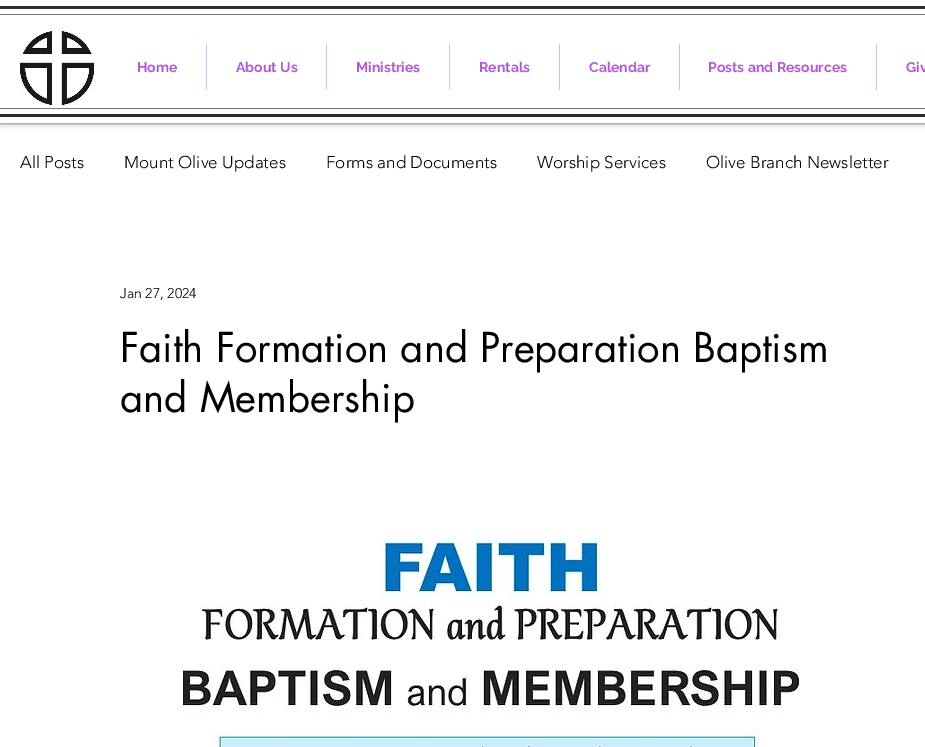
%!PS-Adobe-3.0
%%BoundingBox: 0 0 925 747
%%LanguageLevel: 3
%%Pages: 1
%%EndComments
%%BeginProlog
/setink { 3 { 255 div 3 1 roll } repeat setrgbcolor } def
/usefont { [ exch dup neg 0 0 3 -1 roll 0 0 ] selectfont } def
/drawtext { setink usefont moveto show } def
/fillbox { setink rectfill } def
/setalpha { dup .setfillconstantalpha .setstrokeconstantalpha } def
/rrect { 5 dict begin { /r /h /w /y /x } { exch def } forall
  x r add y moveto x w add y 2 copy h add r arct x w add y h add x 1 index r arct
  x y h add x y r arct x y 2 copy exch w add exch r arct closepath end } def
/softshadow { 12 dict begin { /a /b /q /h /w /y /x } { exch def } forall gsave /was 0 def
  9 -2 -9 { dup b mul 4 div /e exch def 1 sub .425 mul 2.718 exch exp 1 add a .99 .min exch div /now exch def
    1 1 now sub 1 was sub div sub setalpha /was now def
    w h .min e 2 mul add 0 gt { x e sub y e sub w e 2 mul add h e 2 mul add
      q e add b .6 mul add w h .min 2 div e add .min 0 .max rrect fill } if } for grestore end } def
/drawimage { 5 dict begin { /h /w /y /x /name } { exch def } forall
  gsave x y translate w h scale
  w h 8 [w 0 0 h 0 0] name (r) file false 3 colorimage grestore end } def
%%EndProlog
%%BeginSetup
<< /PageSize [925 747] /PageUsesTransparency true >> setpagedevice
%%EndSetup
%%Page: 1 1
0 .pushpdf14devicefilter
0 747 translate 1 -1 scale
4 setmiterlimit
0 0 925 747 255 255 255 fillbox
0 0 0 setink
0 0 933 123 0 2.5 0.7 softshadow
0 0 925 123 255 255 255 fillbox
0 6 925 3 47 46 46 fillbox
0 114 925 3 47 46 46 fillbox
0 14 925 1 117 117 117 fillbox
0 108 925 1 117 117 117 fillbox
(assets/img1.rgb) 20 31 75 76 drawimage
(Home) 137 72 /Raleway-Bold 14 180 90 211 drawtext
206 44 1 46 216 189 226 fillbox
(About Us) 236 72 /Raleway-Bold 14 180 90 211 drawtext
326 44 1 46 216 189 226 fillbox
(Ministries) 356 72 /Raleway-Bold 14 180 90 211 drawtext
449 44 1 46 216 189 226 fillbox
(Rentals) 479 72 /Raleway-Bold 14 180 90 211 drawtext
559 44 1 46 216 189 226 fillbox
(Calendar) 589 72 /Raleway-Bold 14 180 90 211 drawtext
679 44 1 46 216 189 226 fillbox
(Posts and Resources) 708 72 /Raleway-Bold 14 180 90 211 drawtext
876 44 1 46 216 189 226 fillbox
(Giv) 906 72 /Raleway-Bold 14 180 90 211 drawtext
(All Posts) 20 168 /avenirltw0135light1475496-Light 17 0 0 0 drawtext
(Mount Olive Updates) 124 168 /avenirltw0135light1475496-Light 17 0 0 0 drawtext
(Forms and Documents) 326 168 /avenirltw0135light1475496-Light 17 0 0 0 drawtext
(Worship Services) 537 168 /avenirltw0135light1475496-Light 17 0 0 0 drawtext
(Olive Branch Newsletter) 706 168 /avenirltw0135light1475496-Light 17 0 0 0 drawtext
(Jan 27, 2024) 120 298 /avenirltw0135light1475496-Light 14 0 0 0 drawtext
(Faith Formation and Preparation Baptism) 120 362 /futura-Regular 40 0 0 0 drawtext
(and Membership) 120 412 /futura-Regular 40 0 0 0 drawtext
(assets/img2.rgb) 180 536 620 211 drawimage
.poppdf14devicefilter showpage
%%EOF
